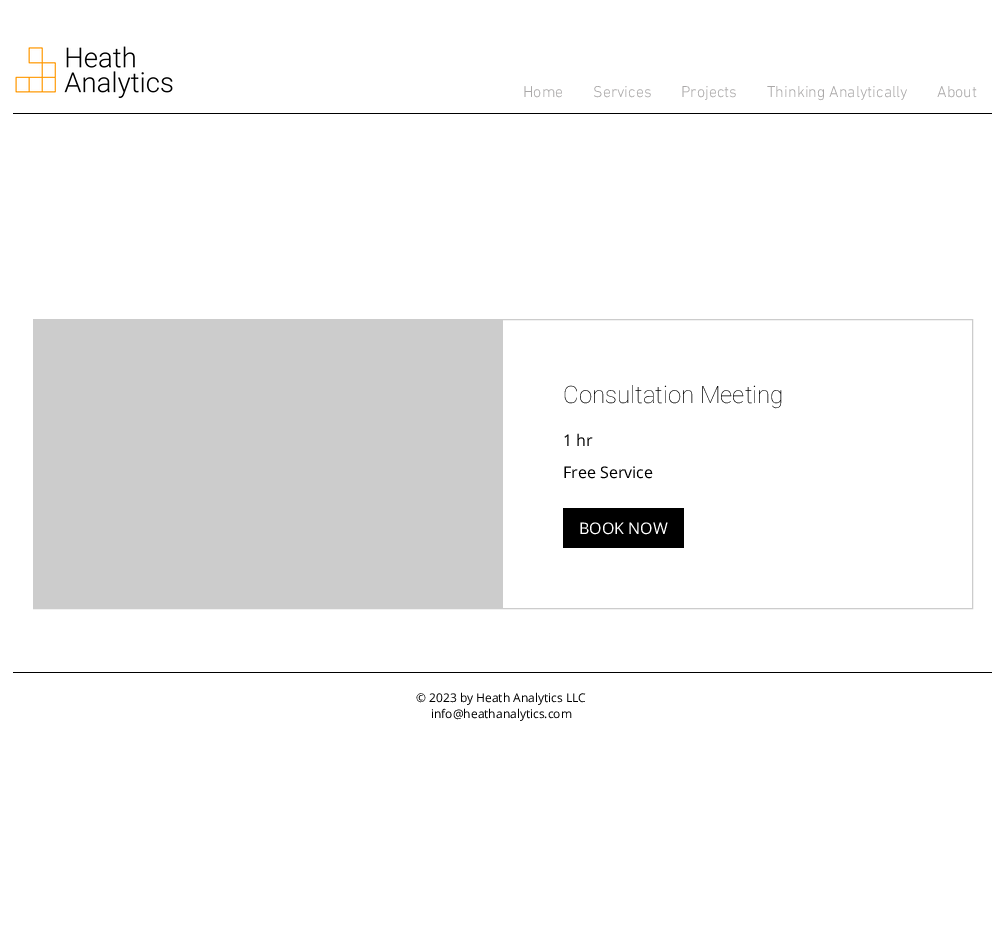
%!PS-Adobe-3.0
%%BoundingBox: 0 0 1006 949
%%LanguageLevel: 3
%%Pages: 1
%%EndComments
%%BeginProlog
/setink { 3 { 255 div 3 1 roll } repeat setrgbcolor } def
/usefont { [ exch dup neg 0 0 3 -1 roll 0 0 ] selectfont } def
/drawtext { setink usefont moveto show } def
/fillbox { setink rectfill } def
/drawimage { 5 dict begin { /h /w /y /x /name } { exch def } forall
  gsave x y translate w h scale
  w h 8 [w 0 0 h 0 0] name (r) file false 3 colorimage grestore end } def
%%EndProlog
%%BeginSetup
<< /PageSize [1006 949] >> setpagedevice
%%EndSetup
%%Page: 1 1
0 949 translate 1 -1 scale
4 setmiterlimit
0 0 1006 949 255 255 255 fillbox
(assets/img1.rgb) 15 46 158 53 drawimage
(Home) 523 97 /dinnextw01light-Light 16 170 168 168 drawtext
(Services) 593 97 /dinnextw01light-Light 16 170 168 168 drawtext
(Projects) 681 97 /dinnextw01light-Light 16 170 168 168 drawtext
(Thinking Analytically) 767 97 /dinnextw01light-Light 16 170 168 168 drawtext
(About) 937 97 /dinnextw01light-Light 16 170 168 168 drawtext
13 113 979 1 0 0 0 fillbox
204 204 204 setink
33.5 319.5 939 289 rectstroke
34 320 469 288 204 204 204 fillbox
(Consultation Meeting) 563 403 /Roboto-Thin 24 0 0 0 drawtext
(1 hr) 563 446 /OpenSans-Regular 16 0 0 0 drawtext
(Free Service) 563 478 /OpenSans-Regular 16 0 0 0 drawtext
563 508 121 40 0 0 0 fillbox
(BOOK NOW) 579 534 /OpenSans-Regular 16 255 255 255 drawtext
13 672 979 1 0 0 0 fillbox
(© 2023 by Heath Analytics LLC) 416 702 /OpenSans-Regular 12 0 0 0 drawtext
(info@heathanalytics.com) 431 718 /OpenSans-Regular 12 0 0 0 drawtext
showpage
%%EOF
